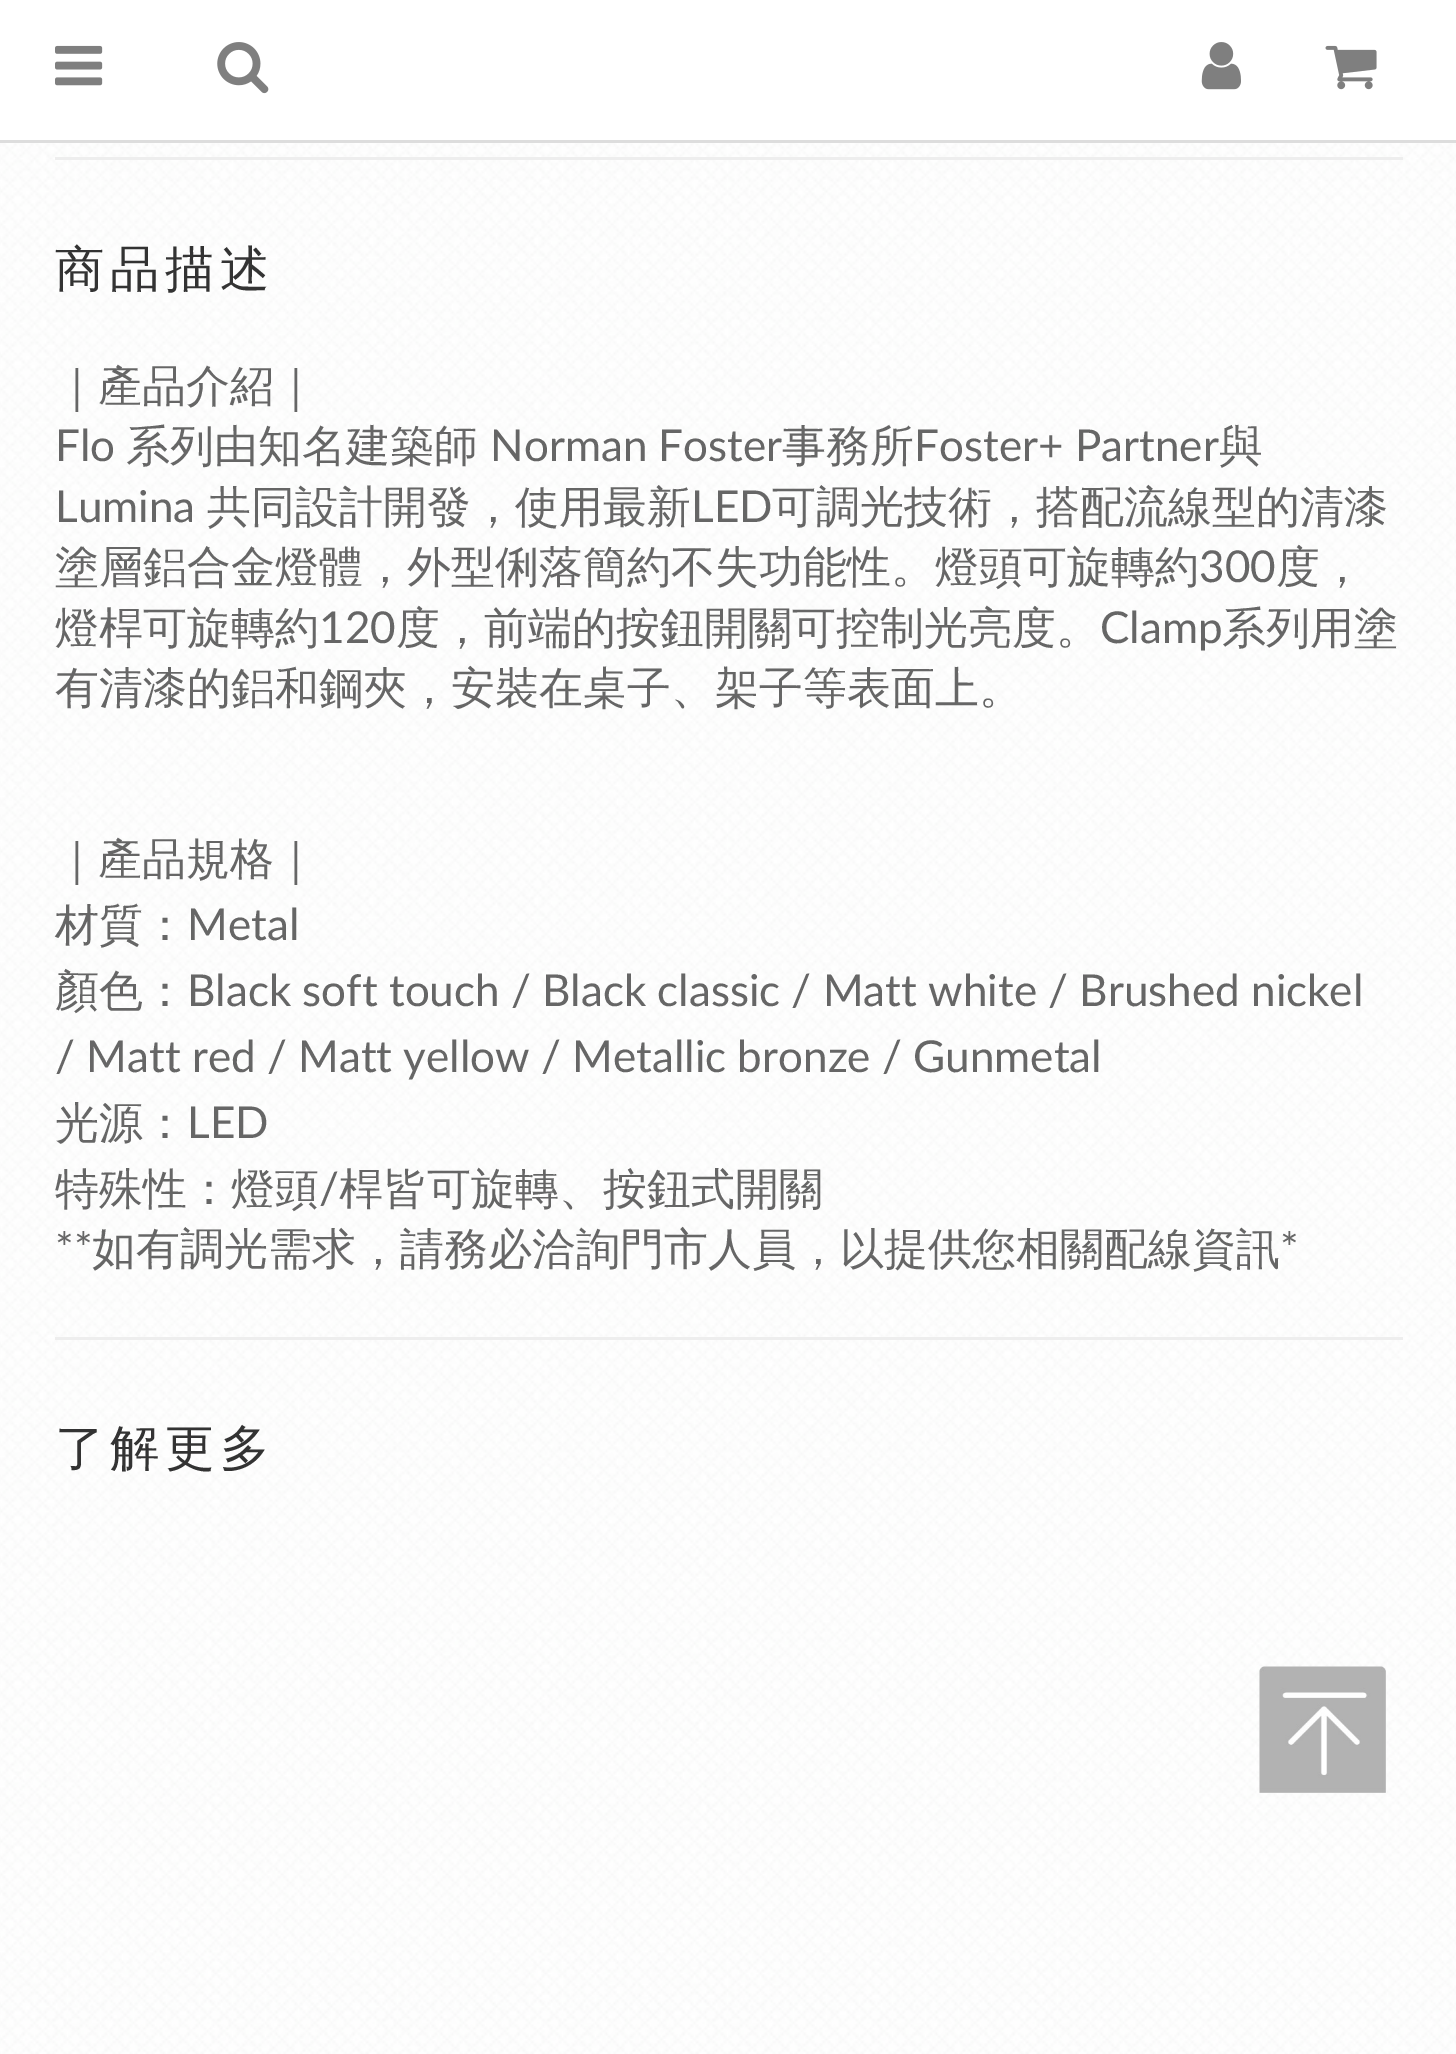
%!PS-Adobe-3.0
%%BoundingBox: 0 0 1456 2054
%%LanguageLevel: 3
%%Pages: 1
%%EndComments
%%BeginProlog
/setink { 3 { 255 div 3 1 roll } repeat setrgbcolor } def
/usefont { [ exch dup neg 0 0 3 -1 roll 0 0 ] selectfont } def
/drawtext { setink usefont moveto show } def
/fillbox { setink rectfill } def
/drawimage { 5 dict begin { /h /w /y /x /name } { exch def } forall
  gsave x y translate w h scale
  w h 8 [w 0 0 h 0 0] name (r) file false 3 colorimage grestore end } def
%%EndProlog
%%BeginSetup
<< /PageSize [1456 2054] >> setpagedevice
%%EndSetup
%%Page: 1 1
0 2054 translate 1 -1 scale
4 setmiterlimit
0 0 1456 2054 255 255 255 fillbox
(assets/img1.rgb) 0 143 1456 1911 drawimage
0 140 1456 3 221 221 221 fillbox
(assets/img2.rgb) 55 45 48 41 drawimage
(assets/img3.rgb) 217 42 52 52 drawimage
(assets/img4.rgb) 1201 42 40 48 drawimage
(assets/img5.rgb) 1325 45 52 45 drawimage
55 157 1348 3 238 238 238 fillbox
/WenQuanYiZenHei-Medium 49.5 usefont
51 51 51 setink
55 286 moveto 5.5 0 (商品描述) ashow
(｜產品介紹｜) 55 401 /WenQuanYiZenHei-Medium 44 102 102 102 drawtext
(Flo) 55 461 /Lato-Regular 44 102 102 102 drawtext
(系列由知名建築師) 126 461 /WenQuanYiZenHei-Medium 44 102 102 102 drawtext
(Norman Foster) 490 461 /Lato-Regular 44 102 102 102 drawtext
(事務所) 782 461 /WenQuanYiZenHei-Medium 44 102 102 102 drawtext
(Foster+ Partner) 914 461 /Lato-Regular 44 102 102 102 drawtext
(與) 1219 461 /WenQuanYiZenHei-Medium 44 102 102 102 drawtext
(Lumina) 55 522 /Lato-Regular 44 102 102 102 drawtext
(共同設計開發，使用最新) 207 522 /WenQuanYiZenHei-Medium 44 102 102 102 drawtext
(LED) 691 522 /Lato-Regular 44 102 102 102 drawtext
(可調光技術，搭配流線型的清漆) 772 522 /WenQuanYiZenHei-Medium 44 102 102 102 drawtext
(塗層鋁合金燈體，外型俐落簡約不失功能性。燈頭可旋轉約) 55 582 /WenQuanYiZenHei-Medium 44 102 102 102 drawtext
(300) 1199 582 /Lato-Regular 44 102 102 102 drawtext
(度，) 1276 582 /WenQuanYiZenHei-Medium 44 102 102 102 drawtext
(燈桿可旋轉約) 55 643 /WenQuanYiZenHei-Medium 44 102 102 102 drawtext
(120) 319 643 /Lato-Regular 44 102 102 102 drawtext
(度，前端的按鈕開關可控制光亮度。) 396 643 /WenQuanYiZenHei-Medium 44 102 102 102 drawtext
(Clamp) 1100 643 /Lato-Regular 44 102 102 102 drawtext
(系列用塗) 1222 643 /WenQuanYiZenHei-Medium 44 102 102 102 drawtext
(有清漆的鋁和鋼夾，安裝在桌子、架子等表面上。) 55 703 /WenQuanYiZenHei-Medium 44 102 102 102 drawtext
(｜產品規格｜) 55 874 /WenQuanYiZenHei-Medium 44 102 102 102 drawtext
(材質：) 55 940 /WenQuanYiZenHei-Medium 44 102 102 102 drawtext
(Metal) 187 940 /Lato-Regular 44 102 102 102 drawtext
(顏色：) 55 1006 /WenQuanYiZenHei-Medium 44 102 102 102 drawtext
(Black soft touch / Black classic / Matt white / Brushed nickel) 187 1006 /Lato-Regular 44 102 102 102 drawtext
(/ Matt red / Matt yellow / Metallic bronze / Gunmetal) 55 1072 /Lato-Regular 44 102 102 102 drawtext
(光源：) 55 1138 /WenQuanYiZenHei-Medium 44 102 102 102 drawtext
(LED) 187 1138 /Lato-Regular 44 102 102 102 drawtext
(特殊性：燈頭) 55 1204 /WenQuanYiZenHei-Medium 44 102 102 102 drawtext
(/) 319 1204 /Lato-Regular 44 102 102 102 drawtext
(桿皆可旋轉、按鈕式開關) 339 1204 /WenQuanYiZenHei-Medium 44 102 102 102 drawtext
(**) 55 1264 /Lato-Regular 44 102 102 102 drawtext
(如有調光需求，請務必洽詢門市人員，以提供您相關配線資訊) 92 1264 /WenQuanYiZenHei-Medium 44 102 102 102 drawtext
(*) 1280 1264 /Lato-Regular 44 102 102 102 drawtext
55 1337 1348 3 238 238 238 fillbox
/WenQuanYiZenHei-Medium 49.5 usefont
51 51 51 setink
55 1465 moveto 5.5 0 (了解更多) ashow
(assets/img6.rgb) 1259 1666 127 127 drawimage
showpage
%%EOF
